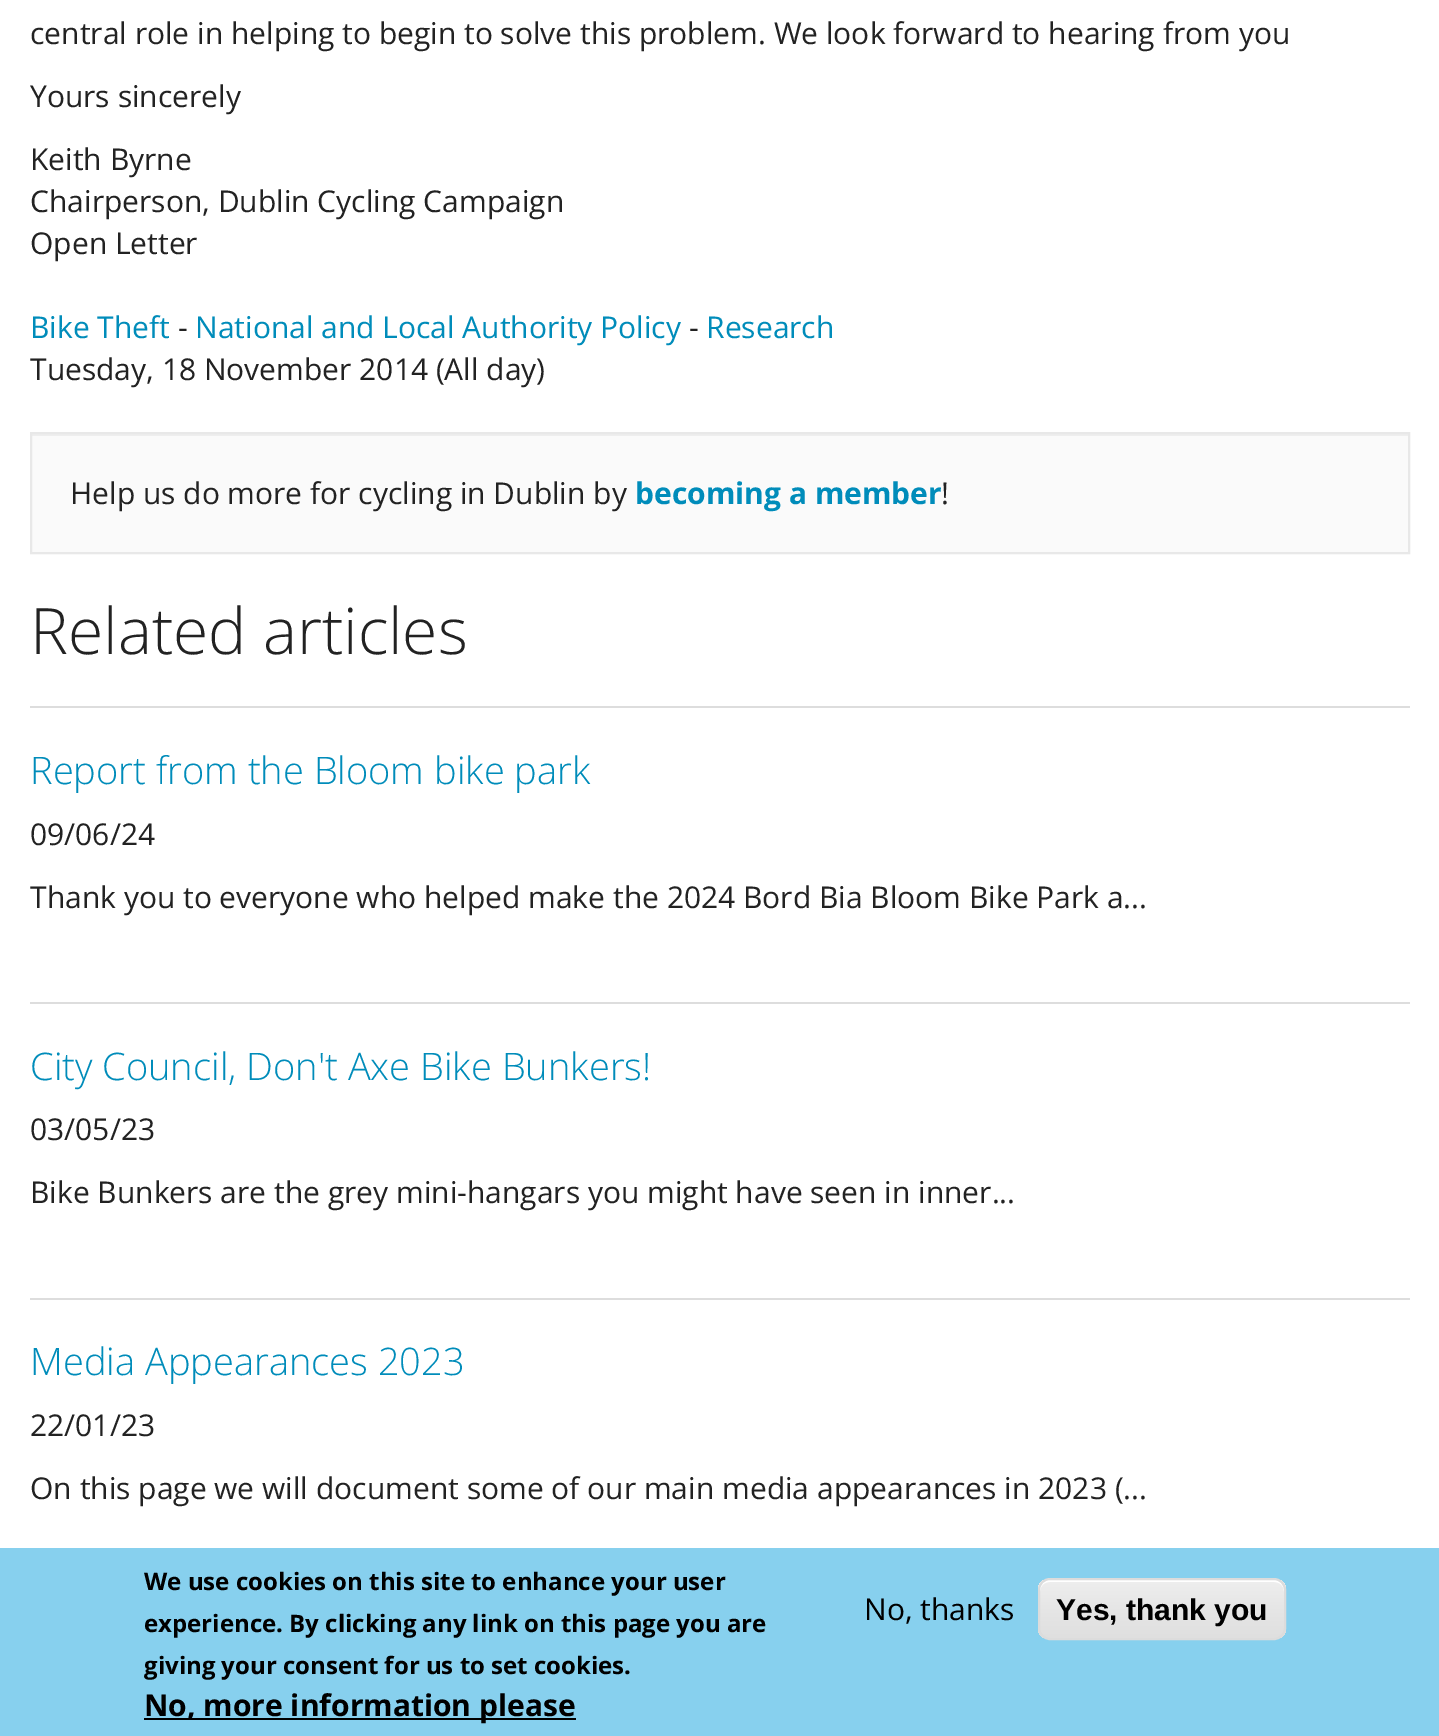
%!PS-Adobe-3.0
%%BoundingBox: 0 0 1439 1736
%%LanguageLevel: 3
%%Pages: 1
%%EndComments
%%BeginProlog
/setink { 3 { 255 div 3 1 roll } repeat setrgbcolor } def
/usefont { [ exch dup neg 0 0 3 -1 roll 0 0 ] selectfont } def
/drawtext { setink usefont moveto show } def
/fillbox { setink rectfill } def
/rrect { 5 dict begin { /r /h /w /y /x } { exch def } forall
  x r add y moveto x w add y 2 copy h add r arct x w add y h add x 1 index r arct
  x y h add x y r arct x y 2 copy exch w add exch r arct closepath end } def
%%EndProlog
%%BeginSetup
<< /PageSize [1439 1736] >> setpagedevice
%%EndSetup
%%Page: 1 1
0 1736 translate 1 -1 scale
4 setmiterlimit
0 0 1439 1736 255 255 255 fillbox
(central role in helping to begin to solve this problem. We look forward to hearing from you) 30 44 /OpenSans-Regular 30 34 34 34 drawtext
(Yours sincerely) 30 107 /OpenSans-Regular 30 34 34 34 drawtext
(Keith Byrne) 30 170 /OpenSans-Regular 30 34 34 34 drawtext
(Chairperson, Dublin Cycling Campaign) 30 212 /OpenSans-Regular 30 34 34 34 drawtext
(Open Letter) 30 254 /OpenSans-Regular 30 34 34 34 drawtext
(Bike Theft) 30 338 /OpenSans-Regular 30 0 140 186 drawtext
(-) 178 338 /OpenSans-Regular 30 34 34 34 drawtext
(National and Local Authority Policy) 195 338 /OpenSans-Regular 30 0 140 186 drawtext
(-) 689 338 /OpenSans-Regular 30 34 34 34 drawtext
(Research) 706 338 /OpenSans-Regular 30 0 140 186 drawtext
(Tuesday, 18 November 2014 \(All day\)) 30 380 /OpenSans-Regular 30 34 34 34 drawtext
32 436 1376 116 250 250 250 fillbox
32 434 1376 2 238 238 238 fillbox
232 232 232 setink
2 setlinewidth
31 433 1378 120 rectstroke
(Help us do more for cycling in Dublin by) 70 504 /OpenSans-Regular 30 34 34 34 drawtext
(becoming a member) 635 504 /OpenSans-Bold 30 0 140 186 drawtext
(!) 941 504 /OpenSans-Regular 30 34 34 34 drawtext
(Related articles) 30 654 /OpenSans-Light 64 34 34 34 drawtext
30 706 1380 2 221 221 221 fillbox
(Report from the Bloom bike park) 30 784 /OpenSans-Light 38 0 140 186 drawtext
(09/06/24) 30 845 /OpenSans-Regular 30 34 34 34 drawtext
(Thank you to everyone who helped make the 2024 Bord Bia Bloom Bike Park a...) 30 908 /OpenSans-Regular 30 34 34 34 drawtext
30 1002 1380 2 221 221 221 fillbox
(City Council, Don't Axe Bike Bunkers!) 30 1080 /OpenSans-Light 38 0 140 186 drawtext
(03/05/23) 30 1140 /OpenSans-Regular 30 34 34 34 drawtext
(Bike Bunkers are the grey mini-hangars you might have seen in inner...) 30 1203 /OpenSans-Regular 30 34 34 34 drawtext
30 1298 1380 2 221 221 221 fillbox
(Media Appearances 2023) 30 1375 /OpenSans-Light 38 0 140 186 drawtext
(22/01/23) 30 1436 /OpenSans-Regular 30 34 34 34 drawtext
(On this page we will document some of our main media appearances in 2023 \(...) 30 1499 /OpenSans-Regular 30 34 34 34 drawtext
0 1548 1439 188 135 208 238 fillbox
(We use cookies on this site to enhance your user) 144 1590 /OpenSans-Bold 24 0 0 0 drawtext
(experience. By clicking any link on this page you are) 144 1632 /OpenSans-Bold 24 0 0 0 drawtext
(giving your consent for us to set cookies.) 144 1674 /OpenSans-Bold 24 0 0 0 drawtext
144 1718 432 2 0 0 0 fillbox
(No, more information please) 144 1716 /OpenSans-Bold 30 0 0 0 drawtext
(No, thanks) 864 1620 /OpenSans-Regular 30 0 0 0 drawtext
gsave
1038 1578 248 62 12 rrect clip newpath
gsave 1038 1580 moveto 1286 1580 lineto 1286 1638 lineto 1038 1638 lineto closepath clip newpath
<< /ShadingType 2 /ColorSpace /DeviceRGB /Coords [1162 1580 1162 1638] /Extend [true true] /Function << /FunctionType 3 /Domain [0 1] /Functions [<< /FunctionType 2 /Domain [0 1] /C0 [0.929 0.929 0.929] /C1 [0.929 0.929 0.929] /N 1 >> << /FunctionType 2 /Domain [0 1] /C0 [0.929 0.929 0.929] /C1 [0.875 0.875 0.875] /N 1 >>] /Bounds [0.05] /Encode [0 1 0 1] >> >> shfill grestore
grestore
255 255 255 setink
1050 1582 moveto 1274 1582 lineto 1280 1582 1284 1586 1284 1592 curveto 1284 1590 lineto 1284 1584 1280 1580 1274 1580 curveto 1050 1580 lineto 1044 1580 1040 1584 1040 1590 curveto 1040 1592 lineto 1040 1586 1044 1582 1050 1582 curveto closepath fill
220 220 220 setink
1039 1579 246 60 11 rrect stroke
(Yes, thank you) 1056 1620 /LiberationSans-Bold 30 0 0 0 drawtext
showpage
%%EOF
